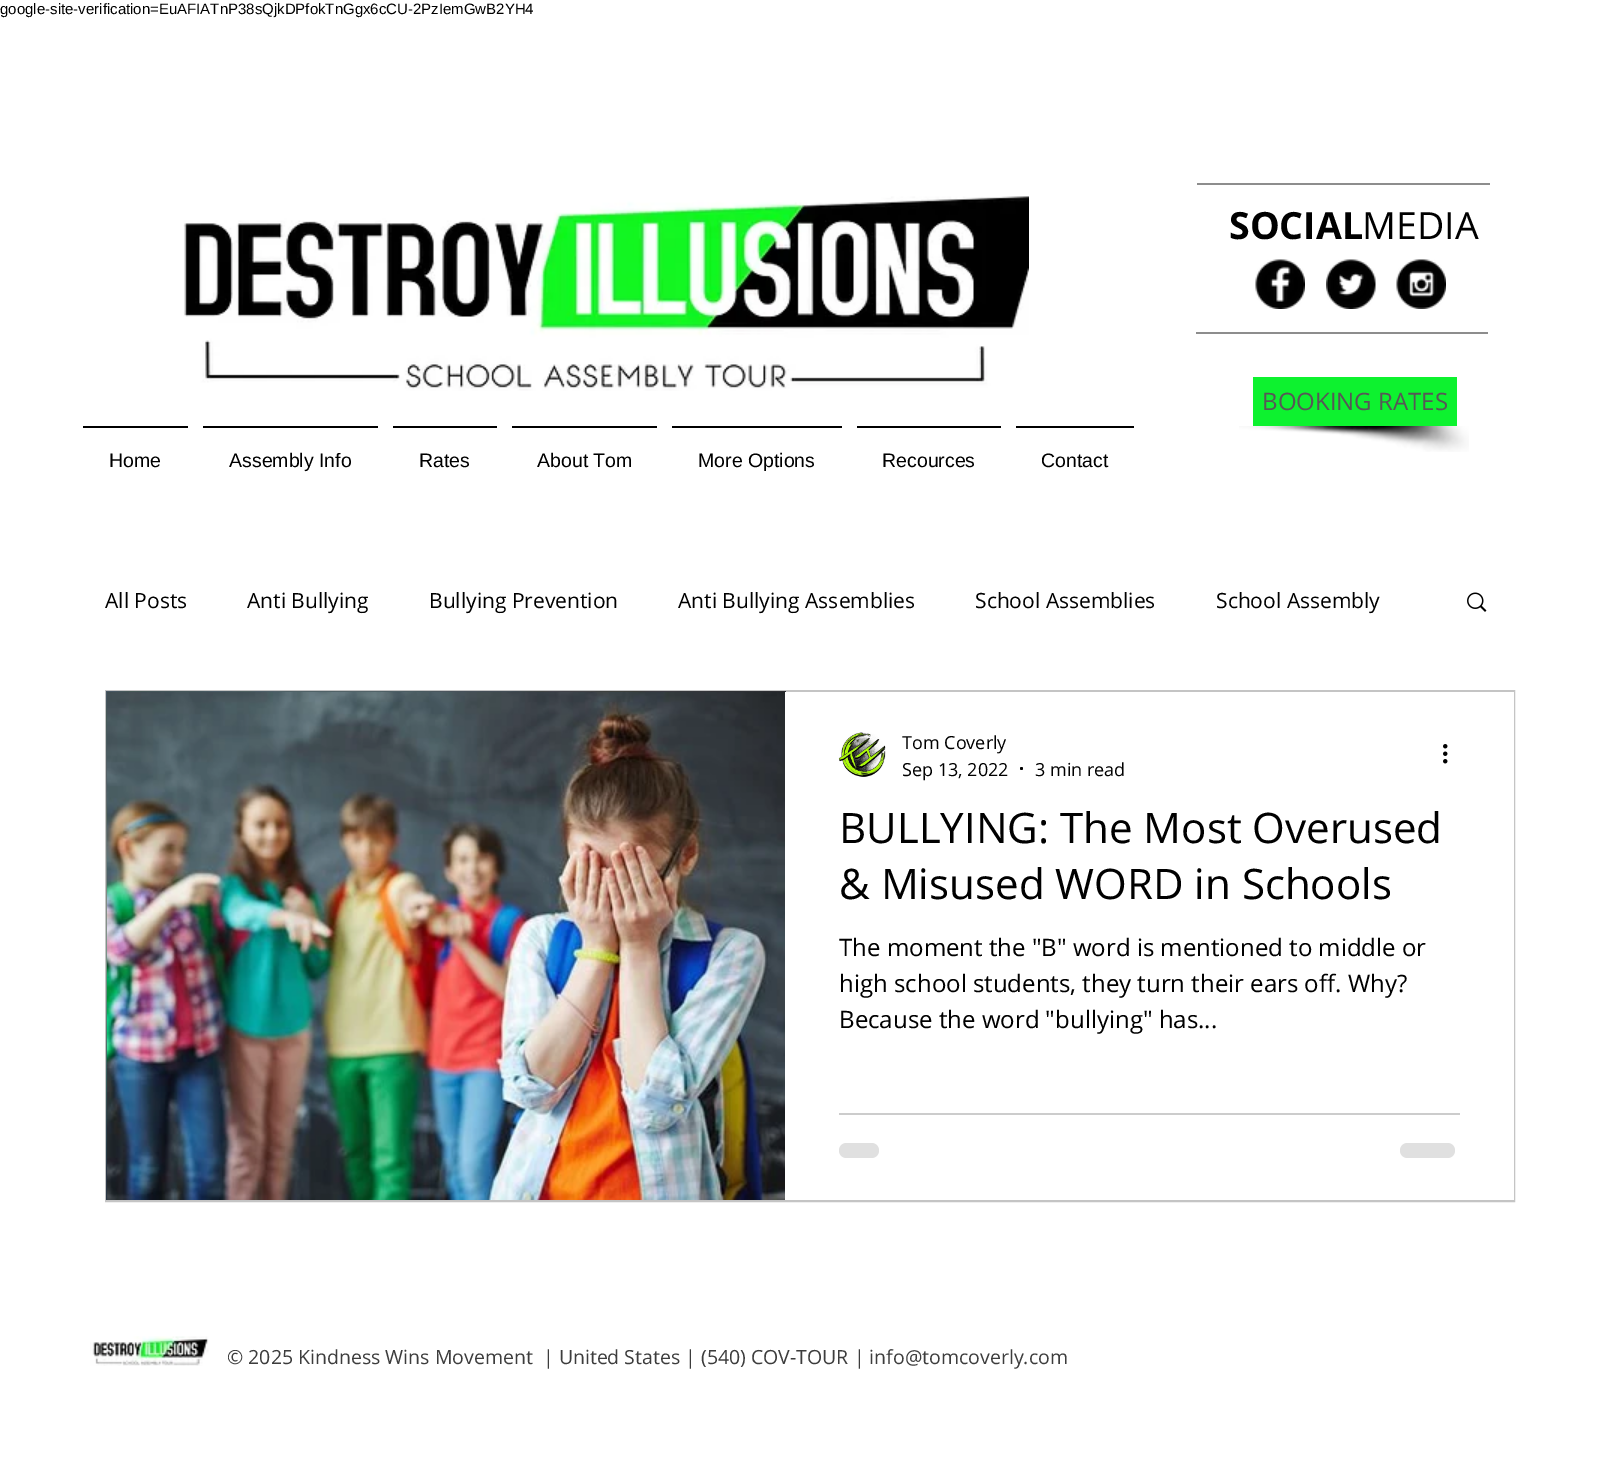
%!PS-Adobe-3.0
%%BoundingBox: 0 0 1619 1458
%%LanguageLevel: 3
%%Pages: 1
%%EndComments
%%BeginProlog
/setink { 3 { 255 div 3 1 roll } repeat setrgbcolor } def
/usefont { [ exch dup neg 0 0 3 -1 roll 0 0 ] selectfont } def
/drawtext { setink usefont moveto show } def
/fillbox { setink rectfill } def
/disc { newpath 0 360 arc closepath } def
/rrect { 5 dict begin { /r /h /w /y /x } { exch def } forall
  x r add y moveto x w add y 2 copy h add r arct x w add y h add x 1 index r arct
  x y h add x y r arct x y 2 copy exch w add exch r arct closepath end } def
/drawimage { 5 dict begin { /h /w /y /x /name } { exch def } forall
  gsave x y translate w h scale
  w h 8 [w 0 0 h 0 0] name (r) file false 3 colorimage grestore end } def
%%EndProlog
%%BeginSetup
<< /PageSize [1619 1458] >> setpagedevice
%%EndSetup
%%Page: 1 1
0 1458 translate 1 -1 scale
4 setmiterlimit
0 0 1619 1458 255 255 255 fillbox
(google-site-verification=EuAFIATnP38sQjkDPfokTnGgx6cCU-2PzIemGwB2YH4) 0 14 /LiberationSans-Regular 15 0 0 0 drawtext
1197 183 293 2 141 141 141 fillbox
(SOCIAL) 1229 239 /OpenSans-Bold 37.5 0 0 0 drawtext
(MEDIA) 1362 239 /OpenSans-Regular 37.5 0 0 0 drawtext
(assets/img1.rgb) 1255 259 50 50 drawimage
(assets/img2.rgb) 1326 259 50 50 drawimage
(assets/img3.rgb) 1396 259 50 50 drawimage
1196 332 292 2 141 141 141 fillbox
1253 377 204 49 13 242 47 fillbox
(BOOKING RATES) 1262 410 /OpenSans-Regular 24 87 87 87 drawtext
(assets/img4.rgb) 1239 426 230 26 drawimage
(assets/img5.rgb) 183 196 846 195 drawimage
83 426 105 2 0 0 0 fillbox
(Home) 109 467 /LiberationSans-Regular 19.5 0 0 0 drawtext
203 426 175 2 0 0 0 fillbox
(Assembly Info) 229 467 /LiberationSans-Regular 19.5 0 0 0 drawtext
393 426 104 2 0 0 0 fillbox
(Rates) 419 467 /LiberationSans-Regular 19.5 0 0 0 drawtext
512 426 145 2 0 0 0 fillbox
(About Tom) 537 467 /LiberationSans-Regular 19.5 0 0 0 drawtext
672 426 170 2 0 0 0 fillbox
(More Options) 698 467 /LiberationSans-Regular 19.5 0 0 0 drawtext
857 426 144 2 0 0 0 fillbox
(Recources) 882 467 /LiberationSans-Regular 19.5 0 0 0 drawtext
1016 426 118 2 0 0 0 fillbox
(Contact) 1041 467 /LiberationSans-Regular 19.5 0 0 0 drawtext
(All Posts) 105 608 /OpenSans-Regular 21 0 0 0 drawtext
(Anti Bullying) 247 608 /OpenSans-Regular 21 0 0 0 drawtext
(Bullying Prevention) 429 608 /OpenSans-Regular 21 0 0 0 drawtext
(Anti Bullying Assemblies) 678 608 /OpenSans-Regular 21 0 0 0 drawtext
(School Assemblies) 975 608 /OpenSans-Regular 21 0 0 0 drawtext
(School Assembly) 1216 608 /OpenSans-Regular 21 0 0 0 drawtext
(assets/img6.rgb) 1467 592 20 20 drawimage
196 196 196 setink
2 setlinewidth
106 691 1408 510 rectstroke
(assets/img7.rgb) 106 691 680 509 drawimage
(assets/img8.rgb) 107 692 678 508 drawimage
785 692 729 508 255 255 255 fillbox
(assets/img9.rgb) 838 732 48 45 drawimage
(Tom Coverly) 902 749 /OpenSans-Regular 18 0 0 0 drawtext
(Sep 13, 2022) 902 776 /OpenSans-Regular 18 0 0 0 drawtext
1021.5 768.5 1.5 disc fill
(3 min read) 1035 776 /OpenSans-Regular 18 0 0 0 drawtext
(assets/img10.rgb) 1443 744 5 20 drawimage
(BULLYING: The Most Overused) 839 843 /OpenSans-Regular 42 0 0 0 drawtext
(& Misused WORD in Schools) 839 899 /OpenSans-Regular 42 0 0 0 drawtext
(The moment the "B" word is mentioned to middle or) 839 956 /OpenSans-Regular 24 0 0 0 drawtext
(high school students, they turn their ears off. Why?) 839 992 /OpenSans-Regular 24 0 0 0 drawtext
(Because the word "bullying" has...) 839 1028 /OpenSans-Regular 24 0 0 0 drawtext
839 1113 621 2 204 204 204 fillbox
224 224 224 setink
839 1143 40 15 7.5 rrect fill
1400 1143 55 15 7.5 rrect fill
(assets/img11.rgb) 90 1336 119 30 drawimage
(© 2025 Kindness Wins Movement  | United States | \(540\) COV-TOUR | info@tomcoverly.com) 227 1364 /OpenSans-Regular 19.5 61 61 61 drawtext
showpage
%%EOF
